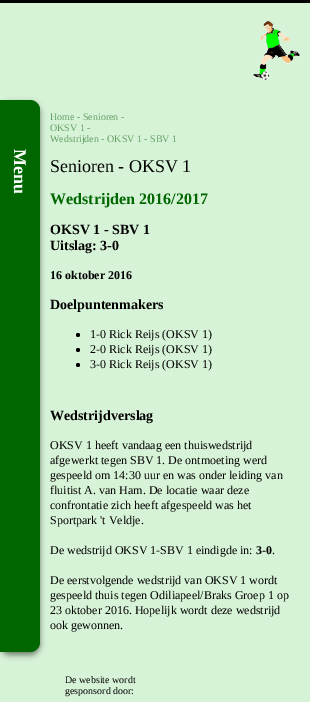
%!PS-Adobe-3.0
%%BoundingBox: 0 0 310 702
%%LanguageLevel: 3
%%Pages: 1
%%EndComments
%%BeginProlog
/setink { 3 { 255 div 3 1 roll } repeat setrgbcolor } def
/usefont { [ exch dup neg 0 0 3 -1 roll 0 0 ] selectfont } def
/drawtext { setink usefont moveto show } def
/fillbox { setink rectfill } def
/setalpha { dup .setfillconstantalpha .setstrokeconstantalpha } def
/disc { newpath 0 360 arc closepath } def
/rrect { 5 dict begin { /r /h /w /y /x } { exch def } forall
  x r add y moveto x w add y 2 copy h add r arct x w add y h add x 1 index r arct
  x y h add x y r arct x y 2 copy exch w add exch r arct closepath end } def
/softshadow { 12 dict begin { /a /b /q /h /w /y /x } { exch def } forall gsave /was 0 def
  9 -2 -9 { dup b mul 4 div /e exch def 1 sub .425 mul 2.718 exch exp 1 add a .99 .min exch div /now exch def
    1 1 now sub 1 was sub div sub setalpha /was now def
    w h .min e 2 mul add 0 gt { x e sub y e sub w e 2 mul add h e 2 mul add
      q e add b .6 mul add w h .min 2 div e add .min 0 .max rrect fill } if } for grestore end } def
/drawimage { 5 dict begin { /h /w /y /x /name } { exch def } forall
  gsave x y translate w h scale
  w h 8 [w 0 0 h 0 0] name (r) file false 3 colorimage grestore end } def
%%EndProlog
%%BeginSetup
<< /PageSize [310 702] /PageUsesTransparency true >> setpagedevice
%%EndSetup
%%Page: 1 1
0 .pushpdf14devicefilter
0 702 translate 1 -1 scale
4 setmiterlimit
0 0 310 702 0 0 0 fillbox
0 3 310 699 215 243 215 fillbox
0 0 0 setink
0 103 40 552 10 3 0.49 softshadow
0 102 0 setink
0 100 moveto 30 100 lineto 35.5 100 40 104.5 40 110 curveto 40 642 lineto 40 647.5 35.5 652 30 652 curveto 0 652 lineto closepath fill
/LiberationSerif-Bold 18 usefont
255 255 255 setink
gsave 14 149 translate 90 rotate 0 0 moveto (Menu) show grestore
(assets/img1.rgb) 253 21 47 59 drawimage
(Home - Senioren -) 50 120 /LiberationSerif-Regular 10 98 158 98 drawtext
(OKSV 1 -) 50 131 /LiberationSerif-Regular 10 98 158 98 drawtext
(Wedstrijden - OKSV 1 - SBV 1) 50 142 /LiberationSerif-Regular 10 98 158 98 drawtext
(Senioren - OKSV 1) 50 172 /LiberationSerif-Regular 18 0 0 0 drawtext
(Wedstrijden 2016/2017) 50 204 /LiberationSerif-Bold 16 0 102 0 drawtext
(OKSV 1 - SBV 1) 50 234 /LiberationSerif-Bold 14 0 0 0 drawtext
(Uitslag: 3-0) 50 250 /LiberationSerif-Bold 14 0 0 0 drawtext
(16 oktober 2016) 50 279 /LiberationSerif-Bold 12 0 0 0 drawtext
(Doelpuntenmakers) 50 309 /LiberationSerif-Bold 14 0 0 0 drawtext
78 335 2 disc fill
(1-0 Rick Reijs \(OKSV 1\)) 90 338 /LiberationSerif-Regular 12 0 0 0 drawtext
78 350 2 disc fill
(2-0 Rick Reijs \(OKSV 1\)) 90 353 /LiberationSerif-Regular 12 0 0 0 drawtext
78 365 2 disc fill
(3-0 Rick Reijs \(OKSV 1\)) 90 368 /LiberationSerif-Regular 12 0 0 0 drawtext
(Wedstrijdverslag) 50 420 /LiberationSerif-Bold 14 0 0 0 drawtext
(OKSV 1 heeft vandaag een thuiswedstrijd) 50 449 /LiberationSerif-Regular 12 0 0 0 drawtext
(afgewerkt tegen SBV 1. De ontmoeting werd) 50 464 /LiberationSerif-Regular 12 0 0 0 drawtext
(gespeeld om 14:30 uur en was onder leiding van) 50 479 /LiberationSerif-Regular 12 0 0 0 drawtext
(fluitist A. van Ham. De locatie waar deze) 50 494 /LiberationSerif-Regular 12 0 0 0 drawtext
(confrontatie zich heeft afgespeeld was het) 50 509 /LiberationSerif-Regular 12 0 0 0 drawtext
(Sportpark 't Veldje.) 50 524 /LiberationSerif-Regular 12 0 0 0 drawtext
(De wedstrijd OKSV 1-SBV 1 eindigde in:) 50 554 /LiberationSerif-Regular 12 0 0 0 drawtext
(3-0) 256 554 /LiberationSerif-Bold 12 0 0 0 drawtext
(.) 272 554 /LiberationSerif-Regular 12 0 0 0 drawtext
(De eerstvolgende wedstrijd van OKSV 1 wordt) 50 584 /LiberationSerif-Regular 12 0 0 0 drawtext
(gespeeld thuis tegen Odiliapeel/Braks Groep 1 op) 50 599 /LiberationSerif-Regular 12 0 0 0 drawtext
(23 oktober 2016. Hopelijk wordt deze wedstrijd) 50 614 /LiberationSerif-Regular 12 0 0 0 drawtext
(ook gewonnen.) 50 629 /LiberationSerif-Regular 12 0 0 0 drawtext
(De website wordt) 65 683 /LiberationSerif-Regular 10 0 0 0 drawtext
(gesponsord door:) 65 694 /LiberationSerif-Regular 10 0 0 0 drawtext
.poppdf14devicefilter showpage
%%EOF
